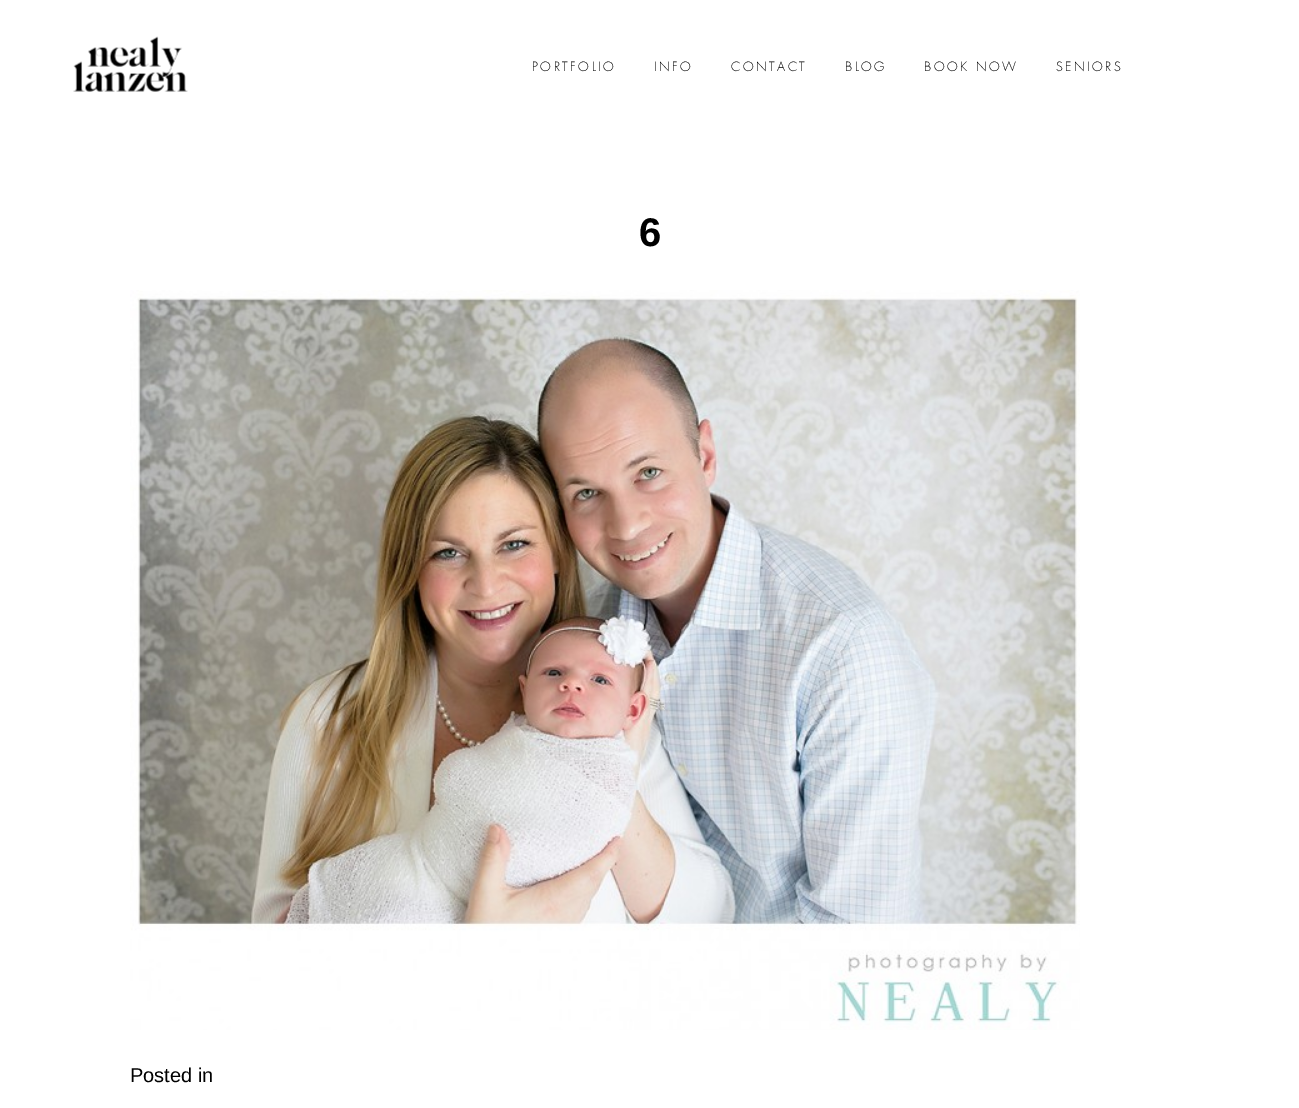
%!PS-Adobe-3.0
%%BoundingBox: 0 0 1299 1108
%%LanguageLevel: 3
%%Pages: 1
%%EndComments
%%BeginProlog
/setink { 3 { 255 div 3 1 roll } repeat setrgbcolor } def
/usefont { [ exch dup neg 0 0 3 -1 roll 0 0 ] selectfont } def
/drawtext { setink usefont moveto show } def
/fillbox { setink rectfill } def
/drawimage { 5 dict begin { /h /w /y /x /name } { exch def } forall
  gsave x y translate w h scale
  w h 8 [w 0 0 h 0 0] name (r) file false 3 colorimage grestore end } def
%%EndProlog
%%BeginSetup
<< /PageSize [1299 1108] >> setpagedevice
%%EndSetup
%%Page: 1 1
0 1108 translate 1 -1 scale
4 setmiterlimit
0 0 1299 1108 255 255 255 fillbox
(assets/img1.rgb) 73 36 115 56 drawimage
/Futura-Light 12.5 usefont
0 0 0 setink
532 71 moveto 2.5 0 (PORTFOLIO) ashow
654 71 moveto 2.5 0 (INFO) ashow
731 71 moveto 2.5 0 (CONTACT) ashow
845 71 moveto 2.5 0 (BLOG) ashow
924 71 moveto 2.5 0 (BOOK NOW) ashow
1056 71 moveto 2.5 0 (SENIORS) ashow
(6) 639 246 /LiberationSans-Bold 40 0 0 0 drawtext
(assets/img2.rgb) 130 290 950 740 drawimage
(Posted in) 130 1082 /LiberationSans-Regular 20 0 0 0 drawtext
showpage
%%EOF
